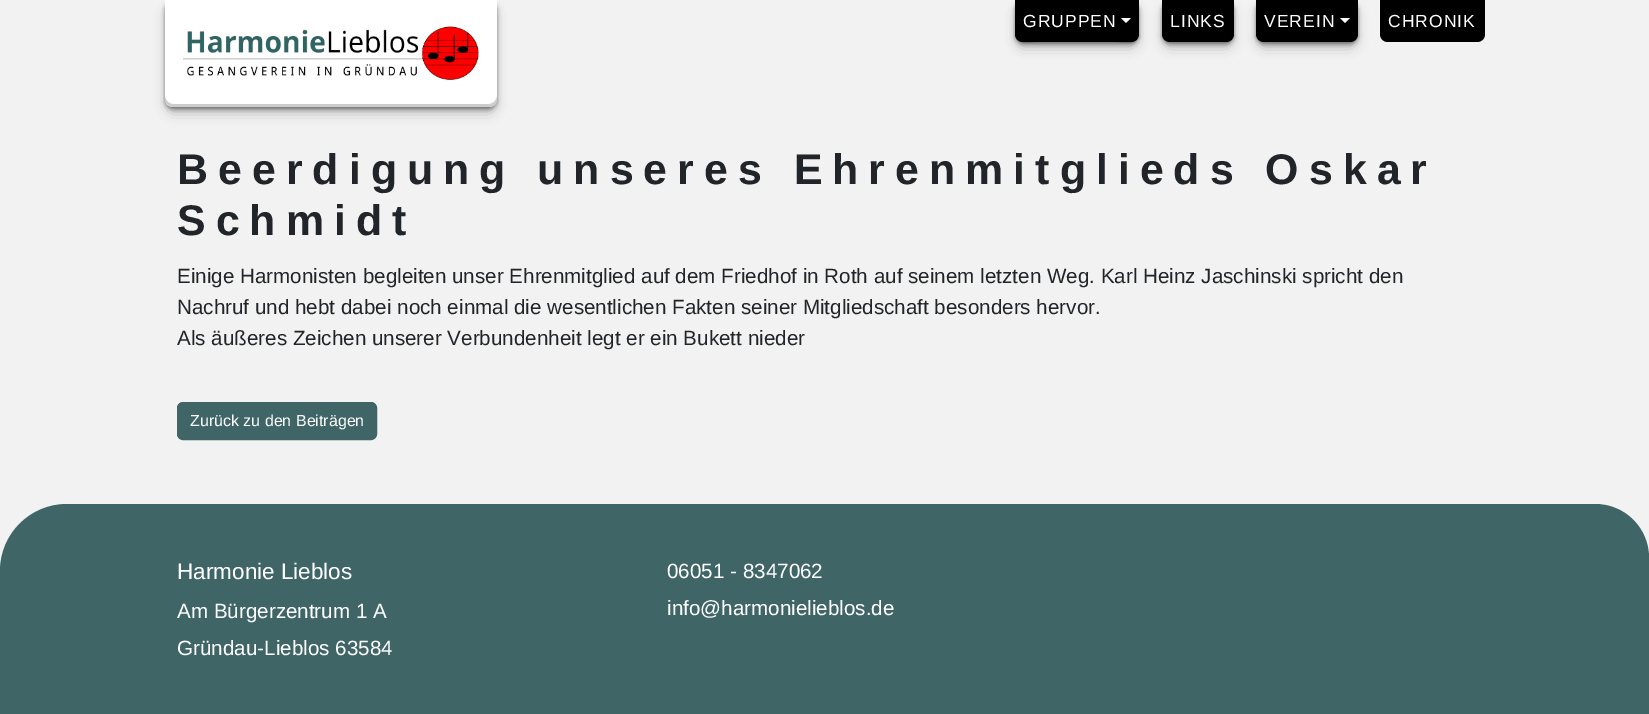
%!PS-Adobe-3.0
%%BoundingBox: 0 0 1649 714
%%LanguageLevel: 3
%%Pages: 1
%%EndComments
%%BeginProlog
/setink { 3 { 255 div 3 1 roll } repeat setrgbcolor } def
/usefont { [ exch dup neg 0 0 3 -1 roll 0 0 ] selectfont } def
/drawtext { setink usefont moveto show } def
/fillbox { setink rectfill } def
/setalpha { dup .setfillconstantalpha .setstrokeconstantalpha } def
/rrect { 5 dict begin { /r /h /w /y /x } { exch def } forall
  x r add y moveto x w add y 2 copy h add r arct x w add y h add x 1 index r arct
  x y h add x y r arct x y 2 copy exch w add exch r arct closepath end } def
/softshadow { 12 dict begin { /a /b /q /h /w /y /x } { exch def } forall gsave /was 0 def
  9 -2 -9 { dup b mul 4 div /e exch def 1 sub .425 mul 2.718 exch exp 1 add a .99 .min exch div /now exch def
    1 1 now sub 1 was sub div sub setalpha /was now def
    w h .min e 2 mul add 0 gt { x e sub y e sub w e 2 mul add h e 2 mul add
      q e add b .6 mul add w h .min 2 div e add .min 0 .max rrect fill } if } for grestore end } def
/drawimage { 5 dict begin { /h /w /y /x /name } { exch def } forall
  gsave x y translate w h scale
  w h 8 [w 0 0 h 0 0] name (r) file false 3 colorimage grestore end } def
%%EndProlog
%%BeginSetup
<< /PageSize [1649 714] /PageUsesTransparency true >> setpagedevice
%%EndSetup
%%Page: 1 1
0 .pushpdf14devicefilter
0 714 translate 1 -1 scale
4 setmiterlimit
0 0 1649 714 242 242 242 fillbox
0 0 0 setink
168 10 326 101 5 6.5 0.3 softshadow
165 2 332 107 8 2 0.4 softshadow
255 255 255 setink
165 0 moveto 497 0 lineto 497 99 lineto 497 103.5 493.5 107 489 107 curveto 173 107 lineto 168.5 107 165 103.5 165 99 curveto closepath fill
0.2 setalpha
0 0 0 setink
165 96 moveto 165 99 lineto 165 103 169 107 173 107 curveto 489 107 lineto 493 107 497 103 497 99 curveto 497 96 lineto 497 100 493 104 489 104 curveto 173 104 lineto 169 104 165 100 165 96 curveto closepath fill
1 setalpha
(assets/img1.rgb) 183 26 296 54 drawimage
1018 10 118 36 5 6.5 0.3 softshadow
1015 2 124 42 8 2 0.4 softshadow
0.2 setalpha
1015 31 moveto 1015 47 1028 42 1041 42 curveto 1113 42 lineto 1126 42 1139 47 1139 31 curveto 1139 35 1135 39 1131 39 curveto 1023 39 lineto 1019 39 1015 35 1015 31 curveto closepath fill
1 setalpha
1015 0 moveto 1139 0 lineto 1139 34 lineto 1139 38.5 1135.5 42 1131 42 curveto 1023 42 lineto 1018.5 42 1015 38.5 1015 34 curveto closepath fill
/LiberationSans-Regular 17.5 usefont
255 255 255 setink
1023 27 moveto 1 0 (GRUPPEN) ashow
1121 18 moveto 1131 18 lineto 1126 23 lineto closepath fill
0 0 0 setink
1165 10 66 36 5 6.5 0.3 softshadow
1162 2 72 42 8 2 0.4 softshadow
1162 0 moveto 1234 0 lineto 1234 34 lineto 1234 38.5 1230.5 42 1226 42 curveto 1170 42 lineto 1165.5 42 1162 38.5 1162 34 curveto closepath fill
255 255 255 setink
1170 27 moveto 1 0 (LINKS) ashow
0 0 0 setink
1259 10 96 36 5 6.5 0.3 softshadow
1256 2 102 42 8 2 0.4 softshadow
1256 0 moveto 1358 0 lineto 1358 34 lineto 1358 38.5 1354.5 42 1350 42 curveto 1264 42 lineto 1259.5 42 1256 38.5 1256 34 curveto closepath fill
255 255 255 setink
1264 27 moveto 1 0 (VEREIN) ashow
1340 18 moveto 1350 18 lineto 1345 23 lineto closepath fill
0 0 0 setink
1380 0 moveto 1485 0 lineto 1485 34 lineto 1485 38.5 1481.5 42 1477 42 curveto 1388 42 lineto 1383.5 42 1380 38.5 1380 34 curveto closepath fill
255 255 255 setink
1388 27 moveto 1 0 (CHRONIK) ashow
/LiberationSans-Bold 42.9 usefont
33 37 41 setink
177 184 moveto 10 0 (Beerdigung unseres Ehrenmitglieds Oskar) ashow
177 235 moveto 10 0 (Schmidt) ashow
(Einige Harmonisten begleiten unser Ehrenmitglied auf dem Friedhof in Roth auf seinem letzten Weg. Karl Heinz Jaschinski spricht den) 177 283 /LiberationSans-Regular 20.62 33 37 41 drawtext
(Nachruf und hebt dabei noch einmal die wesentlichen Fakten seiner Mitgliedschaft besonders hervor.) 177 314 /LiberationSans-Regular 20.62 33 37 41 drawtext
(Als äußeres Zeichen unserer Verbundenheit legt er ein Bukett nieder) 177 345 /LiberationSans-Regular 20.62 33 37 41 drawtext
63 101 102 setink
177.5 402.5 199 37 5.5 rrect gsave fill grestore
stroke
(Zurück zu den Beiträgen) 190 426 /LiberationSans-Regular 16 255 255 255 drawtext
63 101 102 setink
67 504 moveto 1595 504 lineto 1625 504 1649 528 1649 558 curveto 1649 714 lineto 0 714 lineto 0 571 lineto 0 534 30 504 67 504 curveto closepath fill
(Harmonie Lieblos) 177 579 /LiberationSans-Regular 22.5 255 255 255 drawtext
(Am Bürgerzentrum 1 A) 177 618 /LiberationSans-Regular 20.62 255 255 255 drawtext
(Gründau-Lieblos 63584) 177 655 /LiberationSans-Regular 20.62 255 255 255 drawtext
(06051 - 8347062) 667 578 /LiberationSans-Regular 20.62 255 255 255 drawtext
(info@harmonielieblos.de) 667 615 /LiberationSans-Regular 20.62 255 255 255 drawtext
.poppdf14devicefilter showpage
%%EOF
